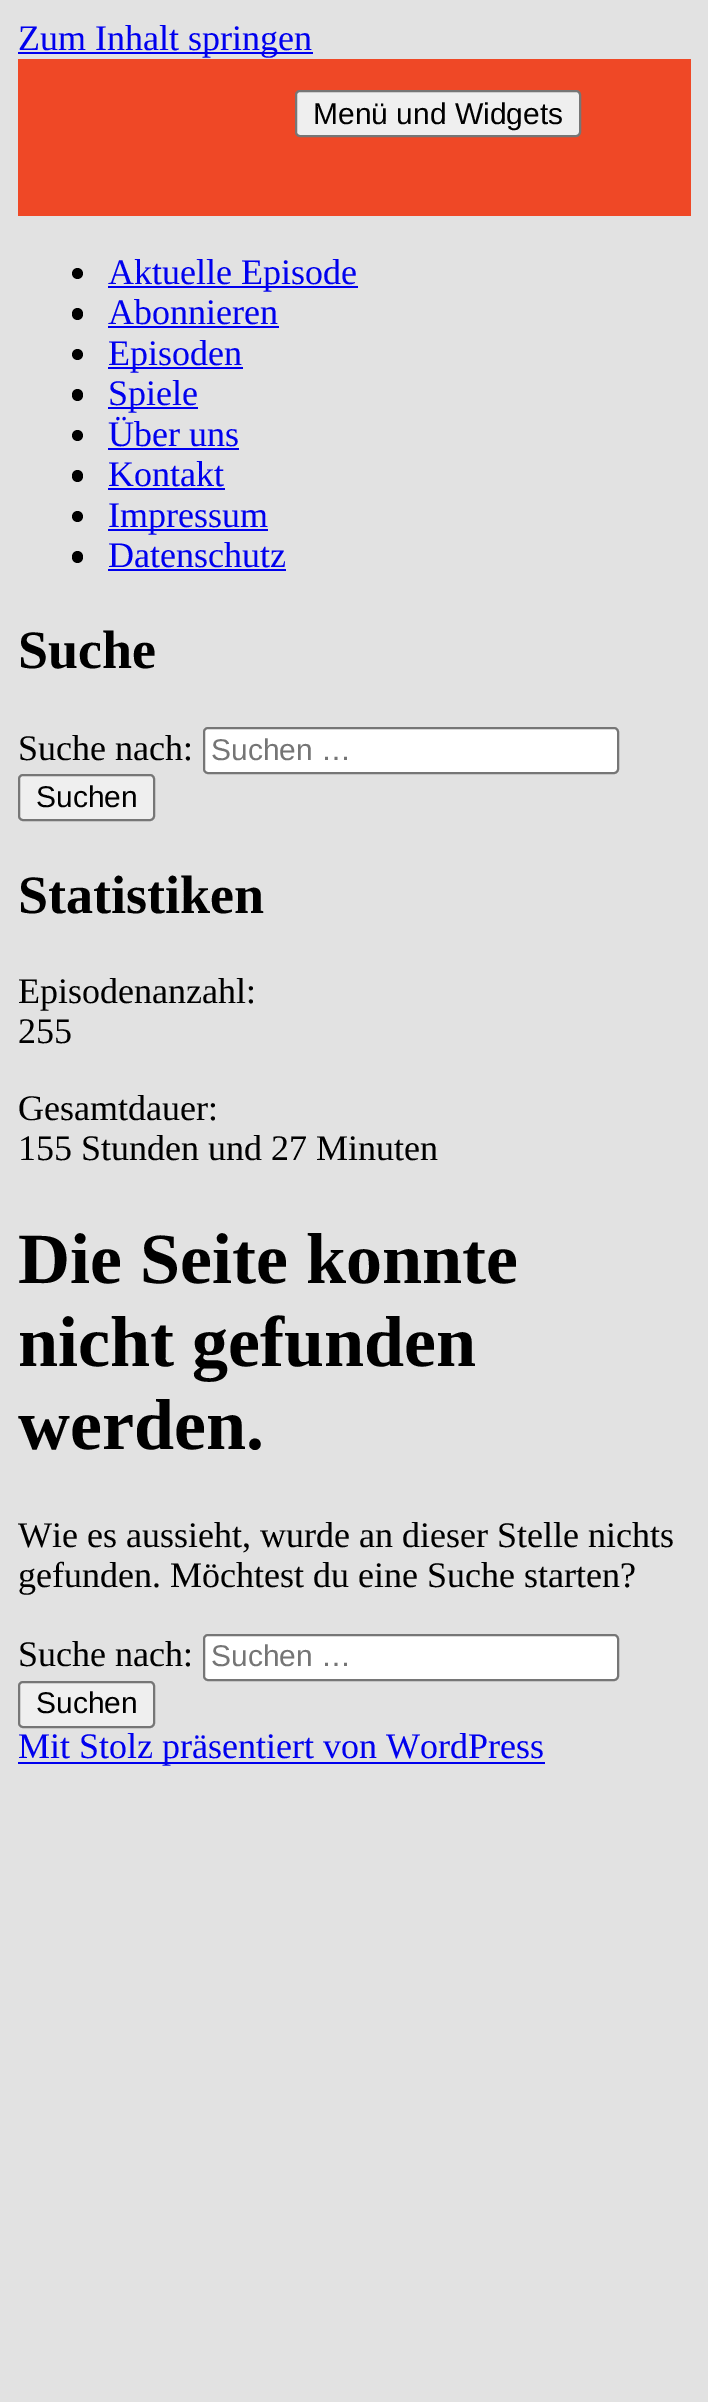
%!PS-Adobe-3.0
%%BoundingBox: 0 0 708 2402
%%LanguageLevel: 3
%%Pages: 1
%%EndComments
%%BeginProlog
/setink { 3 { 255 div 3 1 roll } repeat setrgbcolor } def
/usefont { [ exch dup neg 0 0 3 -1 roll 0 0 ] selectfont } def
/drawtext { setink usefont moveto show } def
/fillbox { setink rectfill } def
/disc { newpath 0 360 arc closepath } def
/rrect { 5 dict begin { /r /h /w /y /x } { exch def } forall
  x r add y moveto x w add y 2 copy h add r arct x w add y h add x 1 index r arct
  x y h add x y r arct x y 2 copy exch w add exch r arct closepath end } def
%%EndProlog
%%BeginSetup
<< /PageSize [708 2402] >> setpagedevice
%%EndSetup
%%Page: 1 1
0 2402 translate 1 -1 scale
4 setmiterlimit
0 0 708 2402 226 226 226 fillbox
18 52 295 2 0 0 238 fillbox
(Zum Inhalt springen) 18 50 /LiberationSerif-Regular 36 0 0 238 drawtext
18 59 673 157 239 72 38 fillbox
239 239 239 setink
296 91 284 45 4 rrect gsave fill grestore
118 118 118 setink
2 setlinewidth
stroke
(Menü und Widgets) 313 124 /LiberationSans-Regular 30 0 0 0 drawtext
77.5 273.5 5.5 disc fill
108 286 250 2 0 0 238 fillbox
(Aktuelle Episode) 108 284 /LiberationSerif-Regular 36 0 0 238 drawtext
0 0 0 setink
72 308 11 12 5.5 rrect fill
(Abonnieren) 108 324 /LiberationSerif-Regular 36 0 0 238 drawtext
108 326 171 2 0 0 238 fillbox
0 0 0 setink
77.5 354.5 5.5 disc fill
108 367 135 2 0 0 238 fillbox
(Episoden) 108 365 /LiberationSerif-Regular 36 0 0 238 drawtext
0 0 0 setink
72 389 11 12 5.5 rrect fill
108 407 90 2 0 0 238 fillbox
(Spiele) 108 405 /LiberationSerif-Regular 36 0 0 238 drawtext
0 0 0 setink
77.5 435.5 5.5 disc fill
(Über uns) 108 446 /LiberationSerif-Regular 36 0 0 238 drawtext
108 448 131 2 0 0 238 fillbox
0 0 0 setink
72 470 11 12 5.5 rrect fill
(Kontakt) 108 486 /LiberationSerif-Regular 36 0 0 238 drawtext
108 488 117 2 0 0 238 fillbox
0 0 0 setink
77.5 516.5 5.5 disc fill
108 529 160 2 0 0 238 fillbox
(Impressum) 108 527 /LiberationSerif-Regular 36 0 0 238 drawtext
0 0 0 setink
72 551 11 12 5.5 rrect fill
(Datenschutz) 108 567 /LiberationSerif-Regular 36 0 0 238 drawtext
108 569 178 2 0 0 238 fillbox
(Suche) 18 668 /LiberationSerif-Bold 54 0 0 0 drawtext
(Suche nach:) 18 760 /LiberationSerif-Regular 36 0 0 0 drawtext
255 255 255 setink
204 728 414 45 4 rrect gsave fill grestore
118 118 118 setink
stroke
(Suchen …) 211 760 /LiberationSans-Regular 30 117 117 117 drawtext
239 239 239 setink
19 775 135 45 4 rrect gsave fill grestore
118 118 118 setink
stroke
(Suchen) 36 807 /LiberationSans-Regular 30 0 0 0 drawtext
(Statistiken) 18 913 /LiberationSerif-Bold 54 0 0 0 drawtext
(Episodenanzahl:) 18 1003 /LiberationSerif-Regular 36 0 0 0 drawtext
(255) 18 1043 /LiberationSerif-Regular 36 0 0 0 drawtext
(Gesamtdauer:) 18 1120 /LiberationSerif-Regular 36 0 0 0 drawtext
(155 Stunden und 27 Minuten) 18 1160 /LiberationSerif-Regular 36 0 0 0 drawtext
(Die Seite konnte) 18 1283 /LiberationSerif-Bold 72 0 0 0 drawtext
(nicht gefunden) 18 1366 /LiberationSerif-Bold 72 0 0 0 drawtext
(werden.) 18 1449 /LiberationSerif-Bold 72 0 0 0 drawtext
(Wie es aussieht, wurde an dieser Stelle nichts) 18 1547 /LiberationSerif-Regular 36 0 0 0 drawtext
(gefunden. Möchtest du eine Suche starten?) 18 1587 /LiberationSerif-Regular 36 0 0 0 drawtext
(Suche nach:) 18 1666 /LiberationSerif-Regular 36 0 0 0 drawtext
255 255 255 setink
204 1635 414 45 4 rrect gsave fill grestore
118 118 118 setink
stroke
(Suchen …) 211 1666 /LiberationSans-Regular 30 117 117 117 drawtext
239 239 239 setink
19 1682 135 45 4 rrect gsave fill grestore
118 118 118 setink
stroke
(Suchen) 36 1713 /LiberationSans-Regular 30 0 0 0 drawtext
18 1762 527 2 0 0 238 fillbox
(Mit Stolz präsentiert von WordPress) 18 1758 /LiberationSerif-Regular 36 0 0 238 drawtext
showpage
%%EOF
